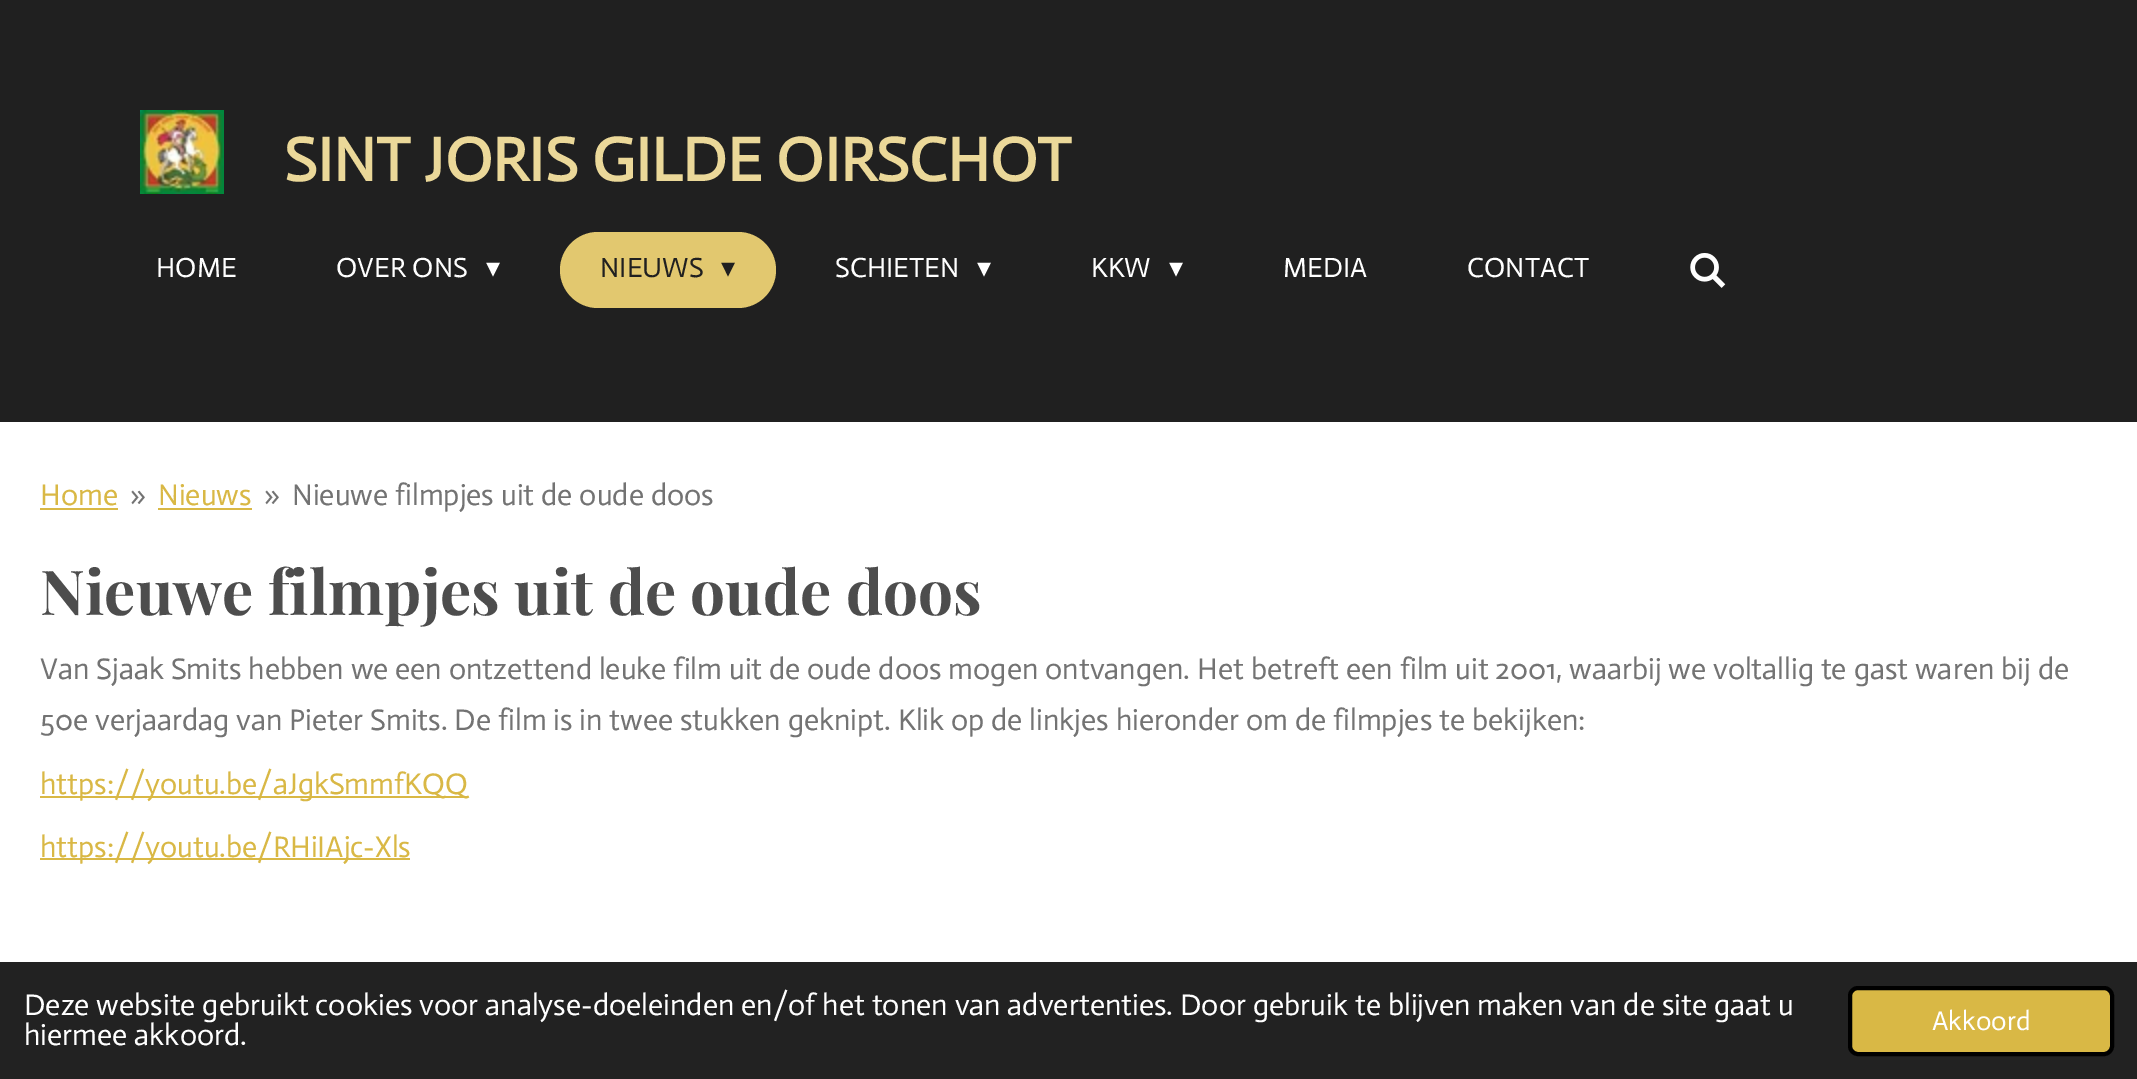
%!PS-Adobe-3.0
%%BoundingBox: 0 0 2137 1079
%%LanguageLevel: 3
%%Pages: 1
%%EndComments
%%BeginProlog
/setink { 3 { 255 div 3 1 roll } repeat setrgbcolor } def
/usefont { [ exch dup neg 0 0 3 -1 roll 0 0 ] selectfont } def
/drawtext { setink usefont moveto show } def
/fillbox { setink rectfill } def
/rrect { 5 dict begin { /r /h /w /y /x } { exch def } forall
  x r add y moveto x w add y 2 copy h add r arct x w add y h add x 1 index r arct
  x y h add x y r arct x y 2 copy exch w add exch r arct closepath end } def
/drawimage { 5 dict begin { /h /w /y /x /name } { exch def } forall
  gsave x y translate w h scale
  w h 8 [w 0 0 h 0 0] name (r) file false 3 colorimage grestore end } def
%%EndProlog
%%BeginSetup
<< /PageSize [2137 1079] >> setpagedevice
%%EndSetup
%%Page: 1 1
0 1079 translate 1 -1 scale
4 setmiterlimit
0 0 2137 1079 255 255 255 fillbox
0 0 2137 422 32 32 32 fillbox
(assets/img1.rgb) 140 110 84 84 drawimage
(SINT JORIS GILDE OIRSCHOT) 284 181 /Actor-Bold 62.4 235 216 153 drawtext
(HOME) 156 277 /Actor-Regular 28 255 255 255 drawtext
(OVER ONS) 336 277 /Actor-Regular 28 255 255 255 drawtext
(▾) 486 277 /DejaVuSans-Regular 28 255 255 255 drawtext
226 200 111 setink
560 232 216 76 38 rrect fill
(NIEUWS) 600 277 /Actor-Regular 28 32 32 32 drawtext
(▾) 721 277 /DejaVuSans-Regular 28 32 32 32 drawtext
(SCHIETEN) 835 277 /Actor-Regular 28 255 255 255 drawtext
(▾) 977 277 /DejaVuSans-Regular 28 255 255 255 drawtext
(KKW) 1091 277 /Actor-Regular 28 255 255 255 drawtext
(▾) 1169 277 /DejaVuSans-Regular 28 255 255 255 drawtext
(MEDIA) 1283 277 /Actor-Regular 28 255 255 255 drawtext
(CONTACT) 1467 277 /Actor-Regular 28 255 255 255 drawtext
(assets/img2.rgb) 1690 253 36 35 drawimage
(Home) 40 505 /Actor-Regular 30 217 184 69 drawtext
40 508 78 2 217 184 69 fillbox
(») 130 505 /Actor-Regular 30 115 115 115 drawtext
(Nieuws) 158 505 /Actor-Regular 30 217 184 69 drawtext
158 508 94 2 217 184 69 fillbox
(») 264 505 /Actor-Regular 30 115 115 115 drawtext
(Nieuwe filmpjes uit de oude doos) 292 505 /Actor-Regular 30 115 115 115 drawtext
(Nieuwe filmpjes uit de oude doos) 40 615 /PlayfairDisplay-Bold 62 77 77 77 drawtext
(Van Sjaak Smits hebben we een ontzettend leuke film uit de oude doos mogen ontvangen. Het betreft een film uit 2001, waarbij we voltallig te gast waren bij de) 40 679 /Actor-Regular 30 115 115 115 drawtext
(50e verjaardag van Pieter Smits. De film is in twee stukken geknipt. Klik op de linkjes hieronder om de filmpjes te bekijken:) 40 730 /Actor-Regular 30 115 115 115 drawtext
40 796 428 2 217 184 69 fillbox
(https://youtu.be/aJgkSmmfKQQ) 40 794 /Actor-Regular 30 217 184 69 drawtext
40 858 370 2 217 184 69 fillbox
(https://youtu.be/RHiIAjc-Xls) 40 857 /Actor-Regular 30 217 184 69 drawtext
0 962 2137 117 34 34 34 fillbox
(Deze website gebruikt cookies voor analyse-doeleinden en/of het tonen van advertenties. Door gebruik te blijven maken van de site gaat u) 24 1015 /Actor-Regular 30 255 255 255 drawtext
(hiermee akkoord.) 24 1045 /Actor-Regular 30 255 255 255 drawtext
217 184 69 setink
1850 988 262 66 8 rrect gsave fill grestore
0 0 0 setink
4 setlinewidth
stroke
(Akkoord) 1932 1030 /Actor-Regular 27 255 255 255 drawtext
showpage
%%EOF
